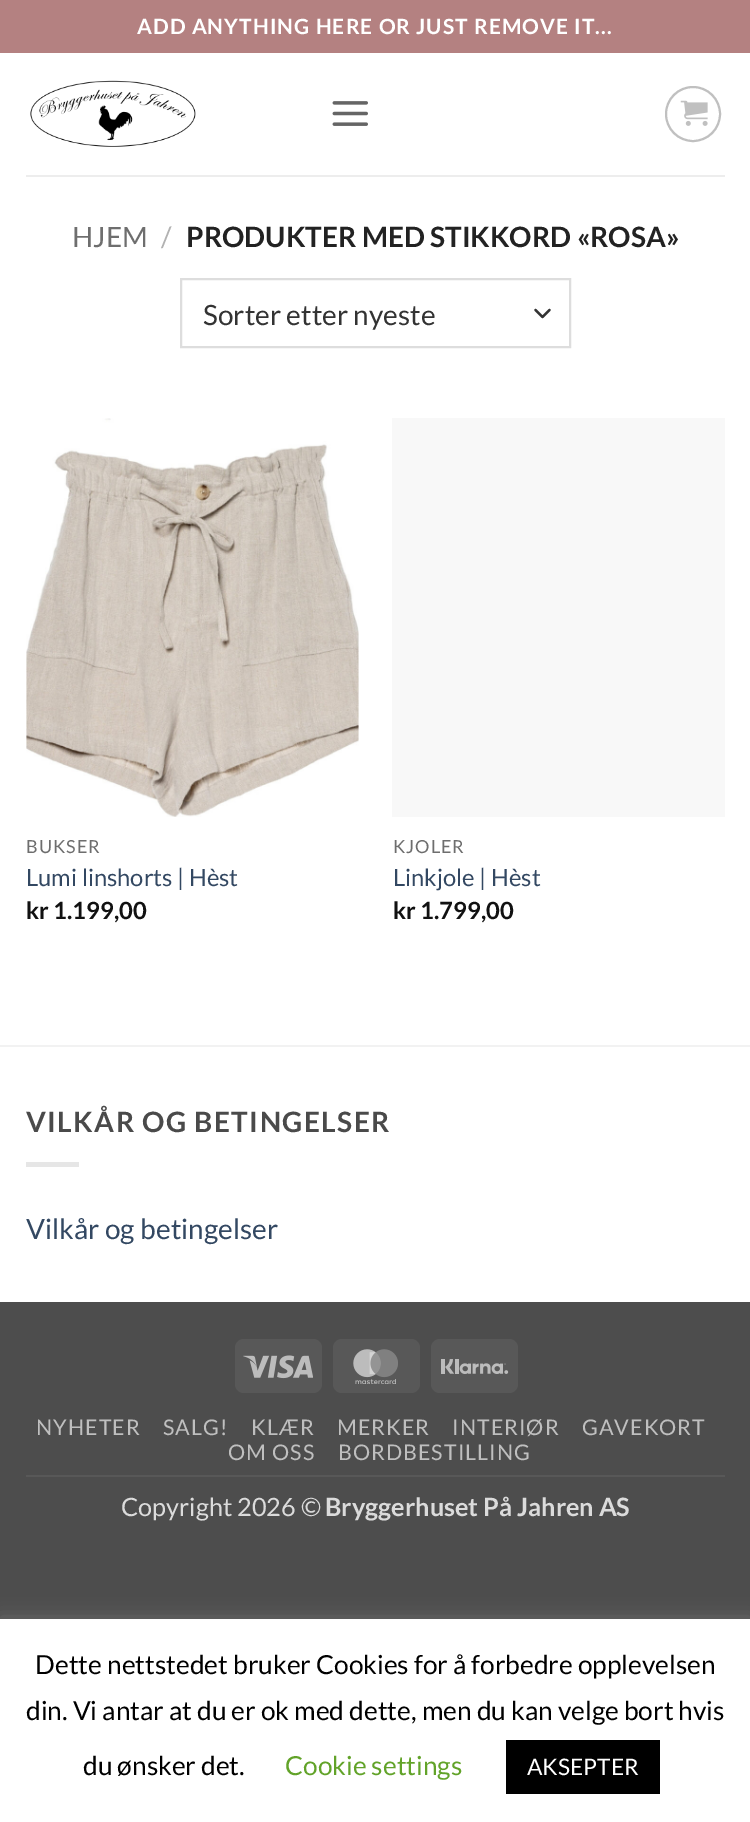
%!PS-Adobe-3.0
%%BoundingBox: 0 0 750 1822
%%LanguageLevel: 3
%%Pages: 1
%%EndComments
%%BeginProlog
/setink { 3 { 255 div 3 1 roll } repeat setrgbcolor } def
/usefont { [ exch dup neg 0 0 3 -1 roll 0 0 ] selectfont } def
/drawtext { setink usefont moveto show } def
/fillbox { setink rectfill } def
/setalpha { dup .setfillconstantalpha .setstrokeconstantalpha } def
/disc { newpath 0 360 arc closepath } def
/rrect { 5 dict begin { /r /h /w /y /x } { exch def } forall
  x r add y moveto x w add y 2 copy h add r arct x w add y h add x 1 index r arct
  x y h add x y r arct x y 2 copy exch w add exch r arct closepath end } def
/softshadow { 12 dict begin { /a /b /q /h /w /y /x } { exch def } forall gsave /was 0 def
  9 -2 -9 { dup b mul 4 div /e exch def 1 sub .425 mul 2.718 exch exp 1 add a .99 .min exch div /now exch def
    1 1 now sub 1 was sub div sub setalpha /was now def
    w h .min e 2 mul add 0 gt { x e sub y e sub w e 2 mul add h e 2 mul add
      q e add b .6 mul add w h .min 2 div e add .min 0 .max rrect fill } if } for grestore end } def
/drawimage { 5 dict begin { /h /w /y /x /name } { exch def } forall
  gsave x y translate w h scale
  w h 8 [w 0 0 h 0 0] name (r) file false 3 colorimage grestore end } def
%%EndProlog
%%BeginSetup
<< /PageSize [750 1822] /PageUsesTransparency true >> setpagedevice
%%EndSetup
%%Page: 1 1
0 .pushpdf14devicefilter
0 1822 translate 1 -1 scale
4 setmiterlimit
0 0 750 1822 77 77 77 fillbox
0 53 750 1249 255 255 255 fillbox
0 0 750 53 180 129 129 fillbox
/Lato-Bold 21 usefont
255 255 255 setink
137 34 moveto 1.05 0 (ADD ANYTHING HERE OR JUST REMOVE IT...) ashow
(assets/img1.rgb) 30 80 166 67 drawimage
(assets/img2.rgb) 332 101 36 25 drawimage
192 192 192 setink
2 setlinewidth
693 114 27 disc stroke
(assets/img3.rgb) 680 100 28 26 drawimage
26 175 699 2 237 237 237 fillbox
(HJEM) 72 247 /Lato-Regular 28 110 110 110 drawtext
(/) 161 247 /Lato-Regular 28 178 178 178 drawtext
(PRODUKTER MED STIKKORD «ROSA») 186 247 /Lato-Bold 28 34 34 34 drawtext
51 51 51 setink
2.3 setlinewidth
1 setlinecap
1 setlinejoin
535.5 310 moveto 542.5 317 lineto 549.5 310 lineto stroke
221 221 221 setink
2 setlinewidth
0 setlinecap
0 setlinejoin
181 279 389 68 rectstroke
(Sorter etter nyeste) 203 325 /Lato-Regular 28 51 51 51 drawtext
(assets/img4.rgb) 26 418 333 399 drawimage
/Lato-Regular 18 usefont
110 110 110 setink
26 853 moveto 1 0 (BUKSER) ashow
(Lumi linshorts | Hèst) 26 886 /Lato-Regular 23.75 51 72 98 drawtext
(kr 1.199,00) 26 919 /Lato-Bold 23.75 17 17 17 drawtext
392 418 333 399 248 248 248 fillbox
/Lato-Regular 18 usefont
110 110 110 setink
393 853 moveto 1 0 (KJOLER) ashow
(Linkjole | Hèst) 393 886 /Lato-Regular 23.75 51 72 98 drawtext
(kr 1.799,00) 393 919 /Lato-Bold 23.75 17 17 17 drawtext
0 1045 750 2 242 242 242 fillbox
/Lato-Bold 28 usefont
74 74 74 setink
26 1132 moveto 1.4 0 (VILKÅR OG BETINGELSER) ashow
26 1162 53 5 230 230 230 fillbox
(Vilkår og betingelser) 26 1239 /Lato-Regular 28 51 72 98 drawtext
88 88 88 setink
235 1339 87 54 9 rrect fill
(assets/img5.rgb) 243 1355 70 24 drawimage
333 1339 87 54 9 rrect fill
(assets/img6.rgb) 353 1349 45 35 drawimage
431 1339 87 54 9 rrect fill
(assets/img7.rgb) 441 1359 68 15 drawimage
26 1475 699 2 88 88 88 fillbox
/Lato-Regular 21.5 usefont
191 191 191 setink
36 1435 moveto 1 0 (NYHETER) ashow
163 1435 moveto 1 0 (SALG!) ashow
251 1435 moveto 1 0 (KLÆR) ashow
337 1435 moveto 1 0 (MERKER) ashow
452 1435 moveto 1 0 (INTERIØR) ashow
582 1435 moveto 1 0 (GAVEKORT) ashow
228 1460 moveto 1 0 (OM OSS) ashow
338 1460 moveto 1 0 (BORDBESTILLING) ashow
(Copyright 2026 ©) 121 1516 /Lato-Regular 25.25 219 219 219 drawtext
(Bryggerhuset På Jahren AS) 325 1516 /Lato-Bold 25.25 219 219 219 drawtext
172 171 171 setink
0 1617 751 205 0 9 0.3 softshadow
0 1619 750 203 255 255 255 fillbox
(Dette nettstedet bruker Cookies for å forbedre opplevelsen) 35 1674 /Lato-Regular 26.25 0 0 0 drawtext
(din. Vi antar at du er ok med dette, men du kan velge bort hvis) 26 1720 /Lato-Regular 26.25 0 0 0 drawtext
(du ønsker det.) 83 1775 /Lato-Regular 26.25 0 0 0 drawtext
(Cookie settings) 285 1775 /Lato-Regular 26.25 98 163 41 drawtext
506 1740 154 54 0 0 0 fillbox
(AKSEPTER) 527 1775 /Lato-Regular 22.75 255 255 255 drawtext
.poppdf14devicefilter showpage
%%EOF
